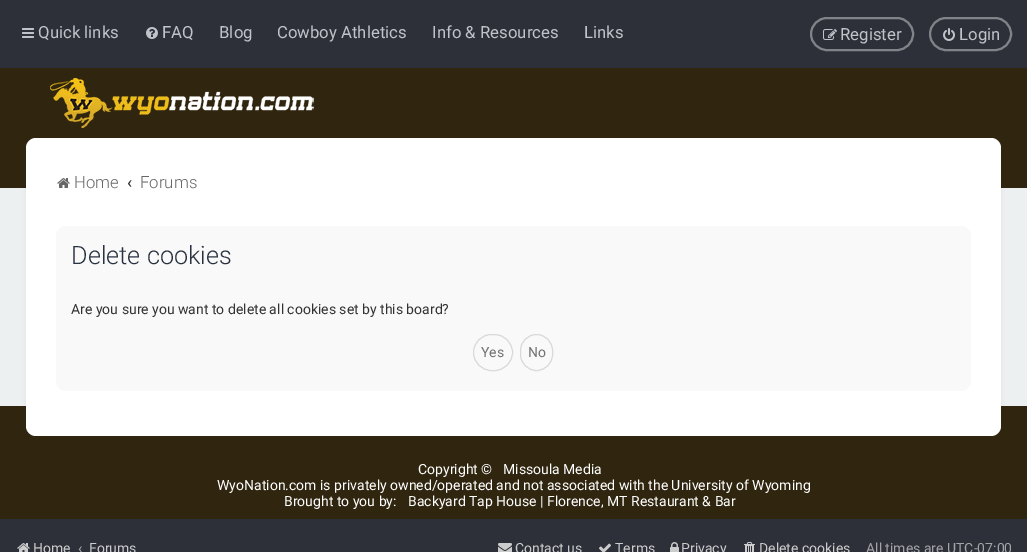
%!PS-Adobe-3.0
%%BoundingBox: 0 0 1027 552
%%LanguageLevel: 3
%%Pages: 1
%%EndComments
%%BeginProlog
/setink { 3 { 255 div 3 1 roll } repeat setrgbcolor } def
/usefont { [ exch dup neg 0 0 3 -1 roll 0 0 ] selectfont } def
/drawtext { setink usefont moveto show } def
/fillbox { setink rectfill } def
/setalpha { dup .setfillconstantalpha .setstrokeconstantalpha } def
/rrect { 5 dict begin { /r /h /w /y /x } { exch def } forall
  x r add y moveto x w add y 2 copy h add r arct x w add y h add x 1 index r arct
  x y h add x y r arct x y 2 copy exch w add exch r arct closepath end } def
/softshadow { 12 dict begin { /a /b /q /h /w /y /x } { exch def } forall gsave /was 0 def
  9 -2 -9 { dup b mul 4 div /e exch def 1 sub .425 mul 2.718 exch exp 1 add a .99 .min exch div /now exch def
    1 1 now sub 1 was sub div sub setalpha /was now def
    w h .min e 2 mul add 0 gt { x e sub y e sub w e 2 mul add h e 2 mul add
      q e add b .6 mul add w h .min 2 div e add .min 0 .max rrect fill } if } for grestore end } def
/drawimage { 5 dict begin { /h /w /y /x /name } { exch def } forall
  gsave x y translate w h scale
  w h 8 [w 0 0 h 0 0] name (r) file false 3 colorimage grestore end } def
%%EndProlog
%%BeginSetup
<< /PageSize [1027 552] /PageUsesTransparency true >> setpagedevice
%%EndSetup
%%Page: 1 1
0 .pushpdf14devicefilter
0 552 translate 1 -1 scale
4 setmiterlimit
0 0 1027 552 236 240 241 fillbox
0 0 1027 68 45 48 57 fillbox
(assets/img1.rgb) 22 28 12 10 drawimage
(Quick links) 38 38 /Roboto-Regular 16.75 190 196 201 drawtext
(assets/img2.rgb) 146 27 12 12 drawimage
(FAQ) 162 38 /Roboto-Regular 16.75 190 196 201 drawtext
(Blog) 219 38 /Roboto-Regular 16.75 190 196 201 drawtext
(Cowboy Athletics) 277 38 /Roboto-Regular 16.75 190 196 201 drawtext
(Info & Resources) 432 38 /Roboto-Regular 16.75 190 196 201 drawtext
(Links) 584 38 /Roboto-Regular 16.75 190 196 201 drawtext
129 131 136 setink
2 setlinewidth
811 18 102 32 16 rrect stroke
(assets/img3.rgb) 823 29 14 11 drawimage
(Register) 840 40 /Roboto-Regular 16.75 190 196 201 drawtext
129 131 136 setink
930 18 81 32 16 rrect stroke
(assets/img4.rgb) 943 28 12 13 drawimage
(Login) 959 40 /Roboto-Regular 16.75 190 196 201 drawtext
0 68 1027 120 48 37 15 fillbox
(assets/img5.rgb) 50 78 264 50 drawimage
0 406 1027 113 48 37 15 fillbox
0 0 0 setink
26 138 975 298 10 2.5 0.05 softshadow
255 255 255 setink
26 138 975 298 10 rrect fill
(assets/img6.rgb) 57 178 13 10 drawimage
(Home) 74 188 /Roboto-Light 16.75 103 103 103 drawtext
(‹) 127 188 /Roboto-Medium 16.75 51 51 51 drawtext
(Forums) 140 188 /Roboto-Light 16.75 103 103 103 drawtext
249 249 249 setink
56 226 915 165 10 rrect fill
(Delete cookies) 71 264 /Roboto-Light 25.25 40 49 63 drawtext
(Are you sure you want to delete all cookies set by this board?) 71 314 /Roboto-Regular 14 51 51 51 drawtext
217 217 217 setink
1 setlinewidth
473.5 334.5 39 36 18 rrect stroke
(Yes) 481 357 /Roboto-Regular 14 113 113 113 drawtext
217 217 217 setink
520.5 334.5 32 36 16 rrect stroke
(No) 528 357 /Roboto-Regular 14 113 113 113 drawtext
(Copyright ©) 418 474 /Roboto-Regular 14 255 255 255 drawtext
(Missoula Media) 503 474 /Roboto-Regular 14 255 255 255 drawtext
(WyoNation.com is privately owned/operated and not associated with the University of Wyoming) 217 490 /Roboto-Regular 14 255 255 255 drawtext
(Brought to you by:) 284 506 /Roboto-Regular 14 255 255 255 drawtext
(Backyard Tap House | Florence, MT Restaurant & Bar) 408 506 /Roboto-Regular 14 255 255 255 drawtext
0 519 1027 33 45 48 57 fillbox
(assets/img7.rgb) 17 543 13 9 drawimage
(Home) 33 553 /Roboto-Regular 14 204 204 204 drawtext
(‹) 78 553 /Roboto-Medium 14 164 164 167 drawtext
(Forums) 89 553 /Roboto-Regular 14 204 204 204 drawtext
(assets/img8.rgb) 498 543 14 9 drawimage
(Contact us) 515 553 /Roboto-Regular 14 204 204 204 drawtext
(assets/img9.rgb) 599 543 12 9 drawimage
(Terms) 615 553 /Roboto-Regular 14 204 204 204 drawtext
(assets/img10.rgb) 670 542 9 10 drawimage
(Privacy) 681 553 /Roboto-Regular 14 204 204 204 drawtext
(assets/img11.rgb) 744 542 11 10 drawimage
(Delete cookies) 759 553 /Roboto-Regular 14 204 204 204 drawtext
(All times are UTC-07:00) 866 553 /Roboto-Regular 14 164 164 167 drawtext
.poppdf14devicefilter showpage
%%EOF
